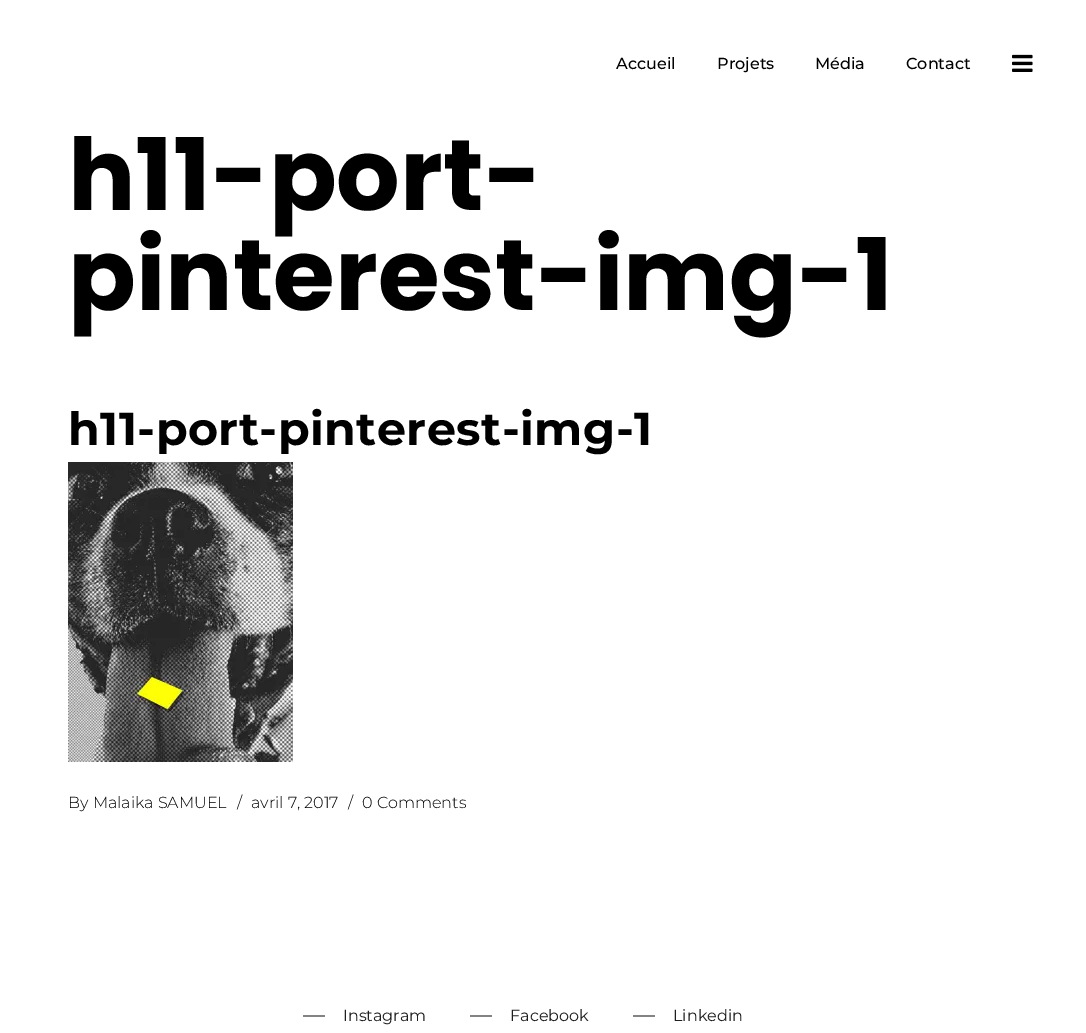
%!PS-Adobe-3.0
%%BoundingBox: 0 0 1086 1033
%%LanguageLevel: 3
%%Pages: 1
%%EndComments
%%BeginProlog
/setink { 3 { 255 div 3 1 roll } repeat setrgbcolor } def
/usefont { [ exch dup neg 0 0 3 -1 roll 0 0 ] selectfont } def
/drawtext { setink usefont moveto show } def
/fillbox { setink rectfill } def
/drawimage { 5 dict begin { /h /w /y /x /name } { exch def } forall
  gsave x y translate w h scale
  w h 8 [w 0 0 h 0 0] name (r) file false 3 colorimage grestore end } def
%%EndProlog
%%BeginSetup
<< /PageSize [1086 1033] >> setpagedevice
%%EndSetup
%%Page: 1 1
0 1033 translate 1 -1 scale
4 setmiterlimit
0 0 1086 1033 255 255 255 fillbox
(Accueil) 616 69 /Montserrat-Medium 16 0 0 0 drawtext
(Projets) 717 69 /Montserrat-Medium 16 0 0 0 drawtext
(Média) 815 69 /Montserrat-Medium 16 0 0 0 drawtext
(Contact) 906 69 /Montserrat-Medium 16 0 0 0 drawtext
(assets/img1.rgb) 1012 54 21 18 drawimage
(h11-port-) 68 210 /Poppins-Bold 100 0 0 0 drawtext
(pinterest-img-1) 68 310 /Poppins-Bold 100 0 0 0 drawtext
/Montserrat-Bold 46 usefont
68 445 moveto 0.5 0 (h11-port-pinterest-img-1) ashow
(assets/img2.rgb) 68 462 225 300 drawimage
(By Malaika SAMUEL) 68 808 /Montserrat-Light 16 0 0 0 drawtext
(/) 237 808 /Montserrat-Light 16 0 0 0 drawtext
(avril 7, 2017) 251 808 /Montserrat-Light 16 0 0 0 drawtext
(/) 348 808 /Montserrat-Light 16 0 0 0 drawtext
(0 Comments) 362 808 /Montserrat-Light 16 0 0 0 drawtext
303 1015 22 2 131 131 131 fillbox
(Instagram) 343 1021 /Montserrat-Regular 16 30 30 30 drawtext
470 1015 22 2 131 131 131 fillbox
(Facebook) 510 1021 /Montserrat-Regular 16 30 30 30 drawtext
633 1015 22 2 131 131 131 fillbox
(Linkedin) 673 1021 /Montserrat-Regular 16 30 30 30 drawtext
showpage
%%EOF
